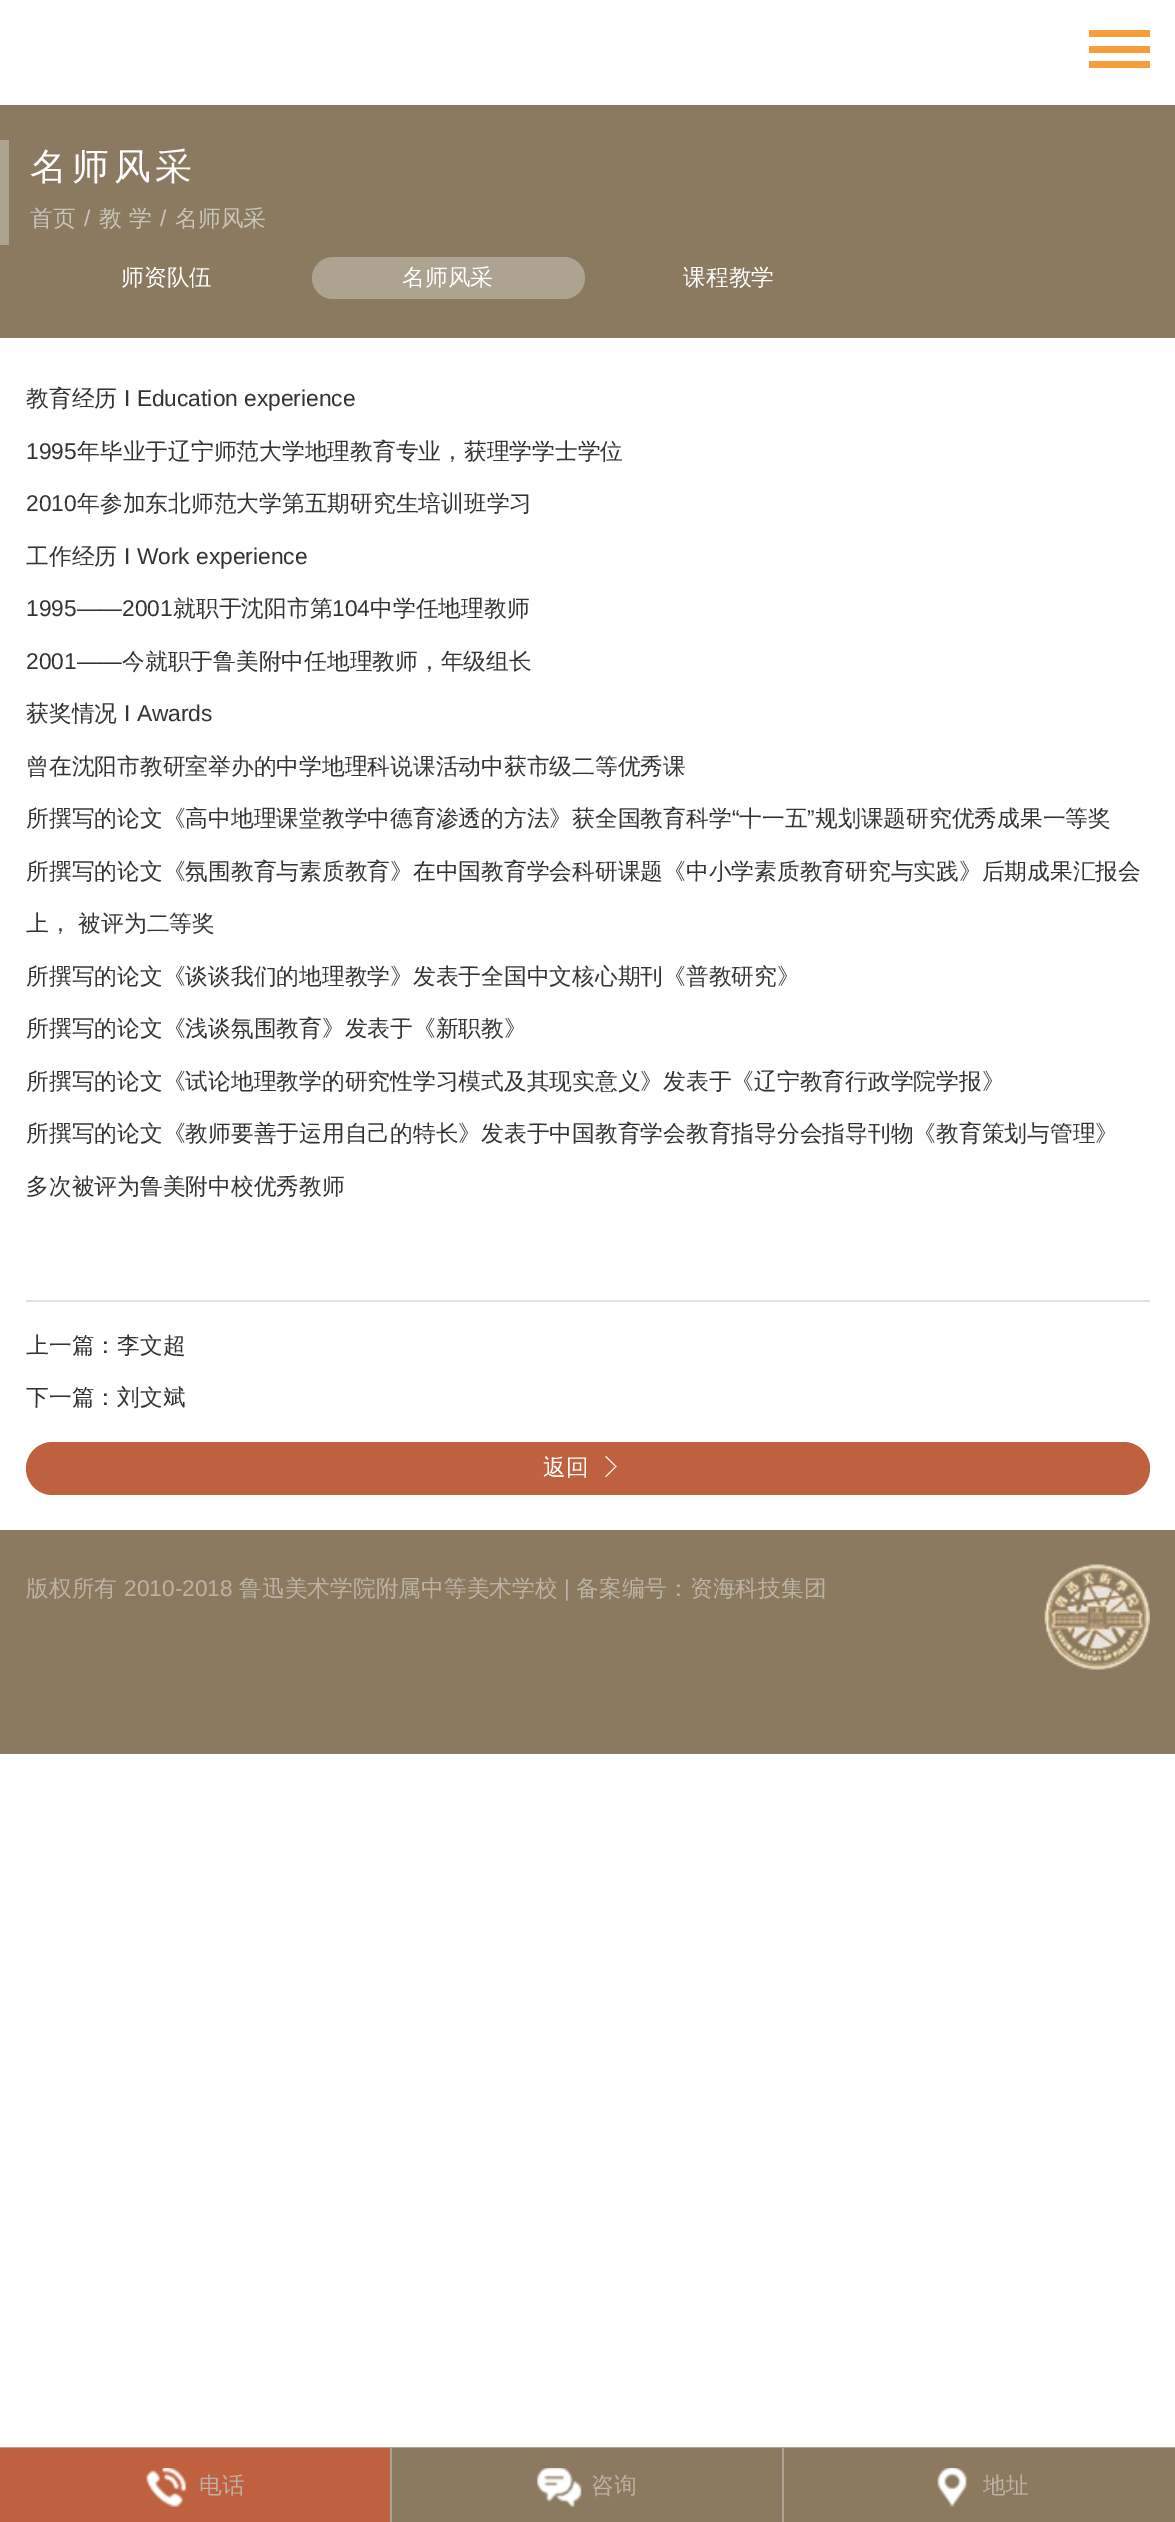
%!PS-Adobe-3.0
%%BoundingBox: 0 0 1175 2522
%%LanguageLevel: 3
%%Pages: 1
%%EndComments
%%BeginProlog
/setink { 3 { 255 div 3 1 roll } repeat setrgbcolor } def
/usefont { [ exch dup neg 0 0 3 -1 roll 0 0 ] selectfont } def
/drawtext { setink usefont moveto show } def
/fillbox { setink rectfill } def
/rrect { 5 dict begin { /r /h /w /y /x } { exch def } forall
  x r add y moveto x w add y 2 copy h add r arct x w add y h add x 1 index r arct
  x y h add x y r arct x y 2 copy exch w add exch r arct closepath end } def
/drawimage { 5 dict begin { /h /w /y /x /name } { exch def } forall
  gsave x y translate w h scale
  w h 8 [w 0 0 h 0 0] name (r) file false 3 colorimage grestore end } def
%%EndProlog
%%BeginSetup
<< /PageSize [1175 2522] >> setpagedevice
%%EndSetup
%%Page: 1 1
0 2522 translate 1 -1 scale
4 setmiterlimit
0 0 1175 2522 255 255 255 fillbox
1089 61 61 7 247 157 60 fillbox
1089 30 61 7 247 157 60 fillbox
1089 46 61 7 247 157 60 fillbox
0 105 1175 233 139 122 96 fillbox
0 140 9 105 174 162 144 fillbox
/WenQuanYiZenHei-Medium 36.75 usefont
255 255 255 setink
30 179 moveto 5 0 (名师风采) ashow
(首页) 30 226 /WenQuanYiZenHei-Medium 22.75 202 196 187 drawtext
(/) 84 226 /LiberationSans-Regular 22.75 202 196 187 drawtext
(教 学) 99 226 /WenQuanYiZenHei-Medium 22.75 202 196 187 drawtext
(/) 160 226 /LiberationSans-Regular 22.75 202 196 187 drawtext
(名师风采) 175 226 /WenQuanYiZenHei-Medium 22.75 202 196 187 drawtext
(师资队伍) 121 285 /WenQuanYiZenHei-Medium 22.75 255 255 255 drawtext
174 162 144 setink
312 257 273 42 21 rrect fill
(名师风采) 402 285 /WenQuanYiZenHei-Medium 22.75 255 255 255 drawtext
(课程教学) 683 285 /WenQuanYiZenHei-Medium 22.75 255 255 255 drawtext
(教育经历) 26 406 /WenQuanYiZenHei-Medium 22.75 51 51 51 drawtext
(I Education experience) 124 406 /LiberationSans-Regular 22.75 51 51 51 drawtext
(1995) 26 459 /LiberationSans-Regular 22.75 51 51 51 drawtext
(年毕业于辽宁师范大学地理教育专业，获理学学士学位) 77 459 /WenQuanYiZenHei-Medium 22.75 51 51 51 drawtext
(2010) 26 511 /LiberationSans-Regular 22.75 51 51 51 drawtext
(年参加东北师范大学第五期研究生培训班学习) 77 511 /WenQuanYiZenHei-Medium 22.75 51 51 51 drawtext
(工作经历) 26 564 /WenQuanYiZenHei-Medium 22.75 51 51 51 drawtext
(I Work experience) 124 564 /LiberationSans-Regular 22.75 51 51 51 drawtext
(1995——2001) 26 616 /LiberationSans-Regular 22.75 51 51 51 drawtext
(就职于沈阳市第) 173 616 /WenQuanYiZenHei-Medium 22.75 51 51 51 drawtext
(104) 332 616 /LiberationSans-Regular 22.75 51 51 51 drawtext
(中学任地理教师) 370 616 /WenQuanYiZenHei-Medium 22.75 51 51 51 drawtext
(2001——) 26 669 /LiberationSans-Regular 22.75 51 51 51 drawtext
(今就职于鲁美附中任地理教师，年级组长) 122 669 /WenQuanYiZenHei-Medium 22.75 51 51 51 drawtext
(获奖情况) 26 721 /WenQuanYiZenHei-Medium 22.75 51 51 51 drawtext
(I Awards) 124 721 /LiberationSans-Regular 22.75 51 51 51 drawtext
(曾在沈阳市教研室举办的中学地理科说课活动中获市级二等优秀课) 26 774 /WenQuanYiZenHei-Medium 22.75 51 51 51 drawtext
(所撰写的论文《高中地理课堂教学中德育渗透的方法》获全国教育科学) 26 826 /WenQuanYiZenHei-Medium 22.75 51 51 51 drawtext
(“) 732 826 /LiberationSans-Regular 22.75 51 51 51 drawtext
(十一五) 739 826 /WenQuanYiZenHei-Medium 22.75 51 51 51 drawtext
(”) 807 826 /LiberationSans-Regular 22.75 51 51 51 drawtext
(规划课题研究优秀成果一等奖) 815 826 /WenQuanYiZenHei-Medium 22.75 51 51 51 drawtext
(所撰写的论文《氛围教育与素质教育》在中国教育学会科研课题《中小学素质教育研究与实践》后期成果汇报会) 26 879 /WenQuanYiZenHei-Medium 22.75 51 51 51 drawtext
(上， 被评为二等奖) 26 931 /WenQuanYiZenHei-Medium 22.75 51 51 51 drawtext
(所撰写的论文《谈谈我们的地理教学》发表于全国中文核心期刊《普教研究》) 26 984 /WenQuanYiZenHei-Medium 22.75 51 51 51 drawtext
(所撰写的论文《浅谈氛围教育》发表于《新职教》) 26 1036 /WenQuanYiZenHei-Medium 22.75 51 51 51 drawtext
(所撰写的论文《试论地理教学的研究性学习模式及其现实意义》发表于《辽宁教育行政学院学报》) 26 1089 /WenQuanYiZenHei-Medium 22.75 51 51 51 drawtext
(所撰写的论文《教师要善于运用自己的特长》发表于中国教育学会教育指导分会指导刊物《教育策划与管理》) 26 1141 /WenQuanYiZenHei-Medium 22.75 51 51 51 drawtext
(多次被评为鲁美附中校优秀教师) 26 1194 /WenQuanYiZenHei-Medium 22.75 51 51 51 drawtext
26 1300 1124 2 226 226 226 fillbox
(上一篇：李文超) 26 1353 /WenQuanYiZenHei-Medium 22.75 51 51 51 drawtext
(下一篇：刘文斌) 26 1405 /WenQuanYiZenHei-Medium 22.75 51 51 51 drawtext
191 97 63 setink
26 1442 1124 53 26.5 rrect fill
(返回) 543 1475 /WenQuanYiZenHei-Medium 22.75 255 255 255 drawtext
(assets/img1.rgb) 605 1455 12 23 drawimage
0 1530 1175 224 139 122 96 fillbox
(assets/img2.rgb) 1044 1564 106 106 drawimage
(版权所有) 26 1596 /WenQuanYiZenHei-Medium 22.75 188 179 167 drawtext
(2010-2018) 124 1596 /LiberationSans-Regular 22.75 188 179 167 drawtext
(鲁迅美术学院附属中等美术学校) 239 1596 /WenQuanYiZenHei-Medium 22.75 188 179 167 drawtext
(|) 564 1596 /LiberationSans-Regular 22.75 188 179 167 drawtext
(备案编号：资海科技集团) 576 1596 /WenQuanYiZenHei-Medium 22.75 188 179 167 drawtext
0 2447 1175 1 174 162 144 fillbox
0 2448 390 74 191 97 63 fillbox
390 2448 2 74 174 162 144 fillbox
(assets/img3.rgb) 146 2468 41 39 drawimage
(电话) 199 2493 /WenQuanYiZenHei-Medium 22.75 188 179 167 drawtext
392 2448 390 74 139 122 96 fillbox
782 2448 2 74 174 162 144 fillbox
(assets/img4.rgb) 537 2468 45 39 drawimage
(咨询) 591 2493 /WenQuanYiZenHei-Medium 22.75 188 179 167 drawtext
784 2448 391 74 139 122 96 fillbox
(assets/img5.rgb) 937 2468 31 39 drawimage
(地址) 983 2493 /WenQuanYiZenHei-Medium 22.75 188 179 167 drawtext
showpage
%%EOF
